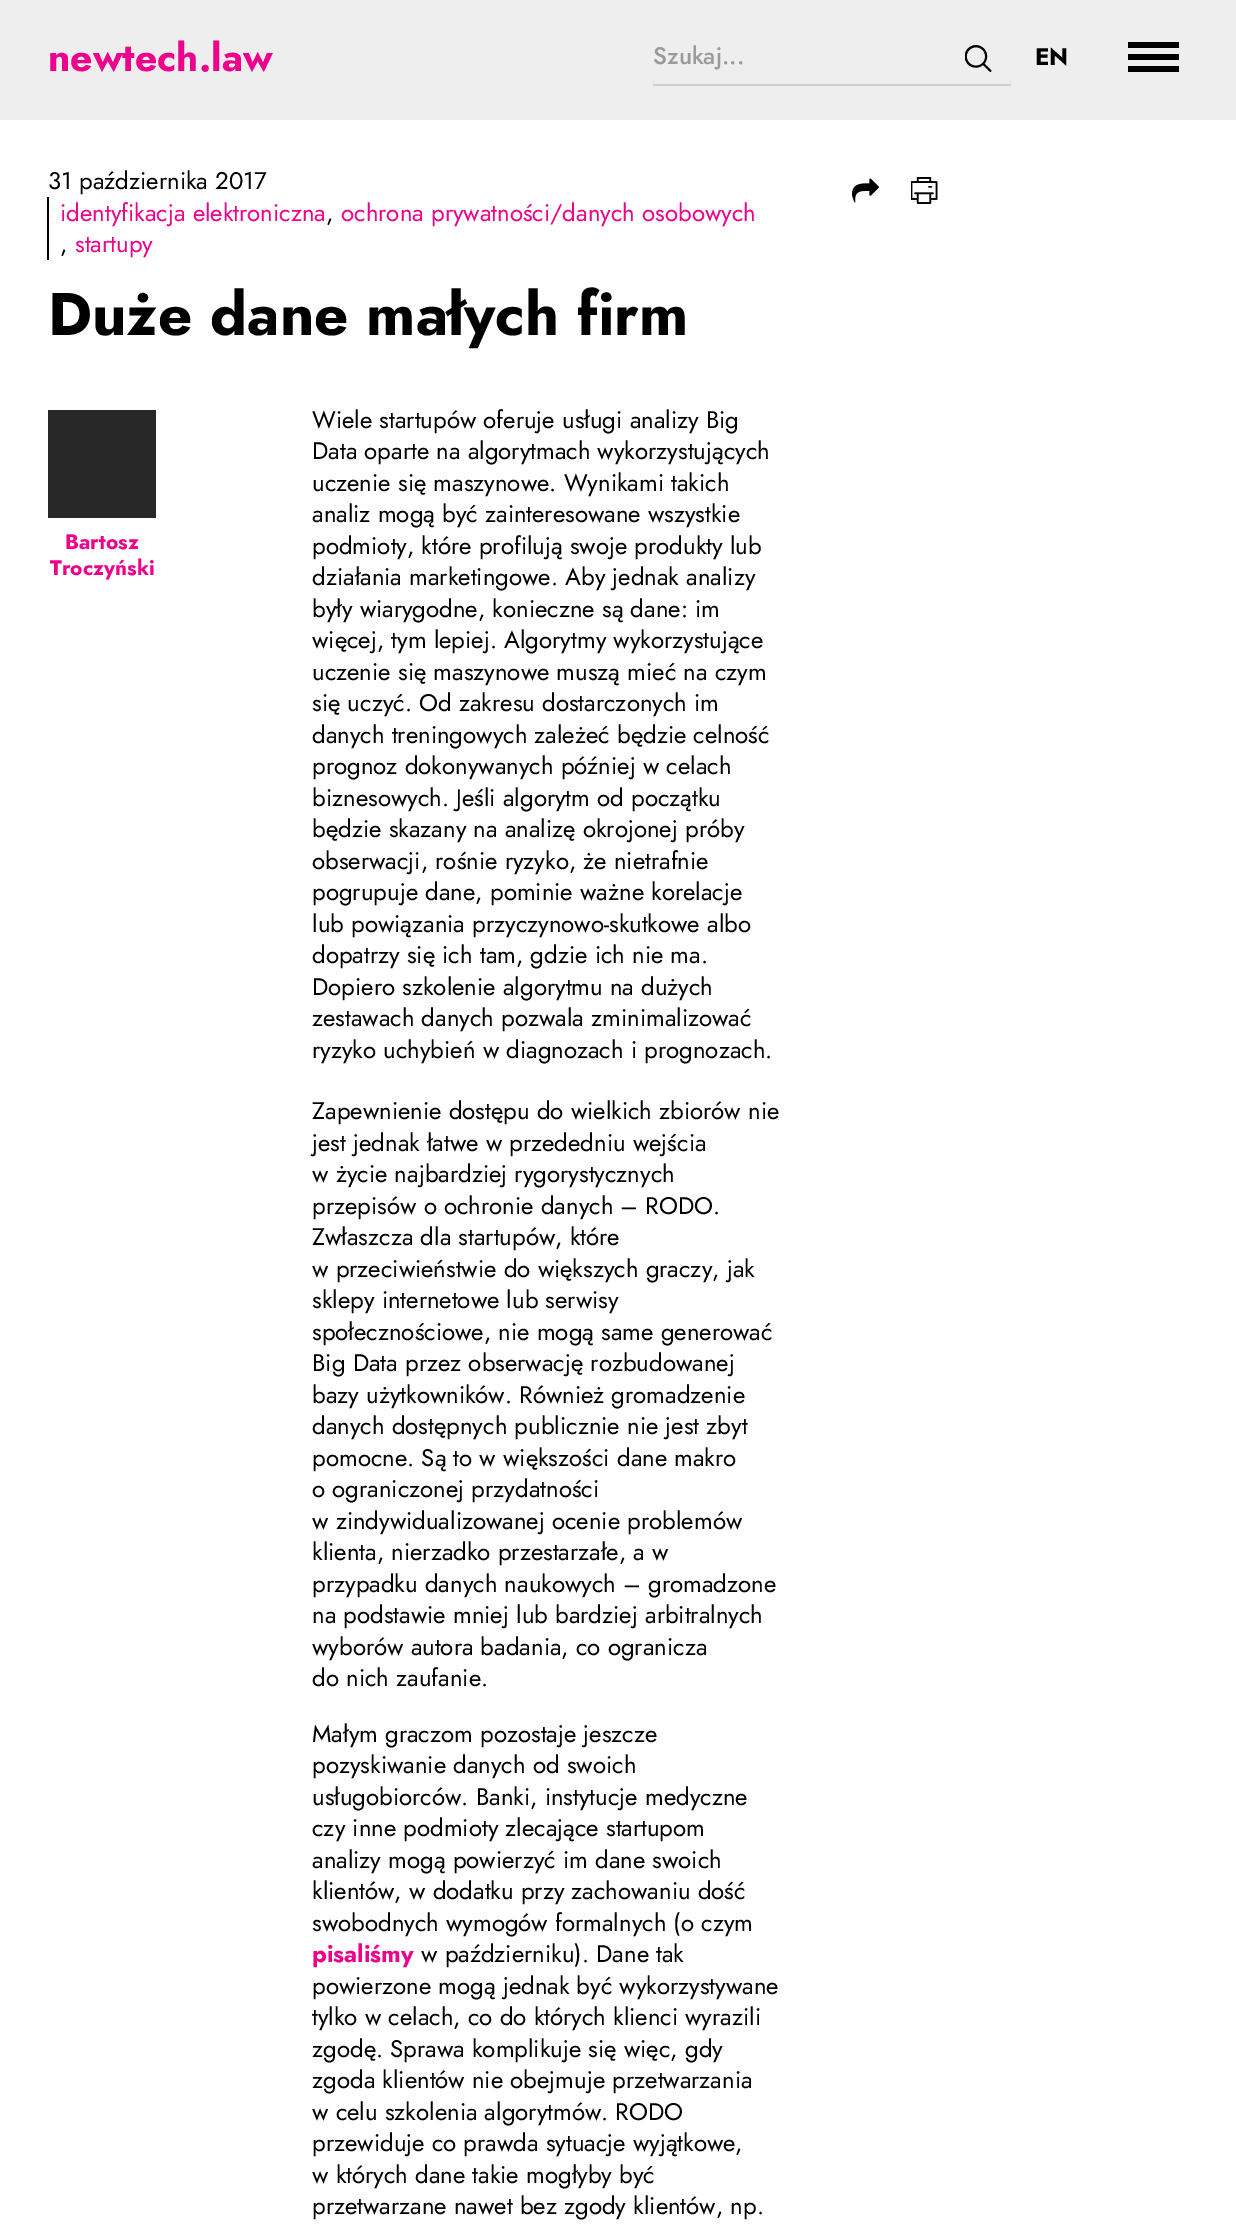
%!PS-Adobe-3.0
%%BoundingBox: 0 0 1236 2232
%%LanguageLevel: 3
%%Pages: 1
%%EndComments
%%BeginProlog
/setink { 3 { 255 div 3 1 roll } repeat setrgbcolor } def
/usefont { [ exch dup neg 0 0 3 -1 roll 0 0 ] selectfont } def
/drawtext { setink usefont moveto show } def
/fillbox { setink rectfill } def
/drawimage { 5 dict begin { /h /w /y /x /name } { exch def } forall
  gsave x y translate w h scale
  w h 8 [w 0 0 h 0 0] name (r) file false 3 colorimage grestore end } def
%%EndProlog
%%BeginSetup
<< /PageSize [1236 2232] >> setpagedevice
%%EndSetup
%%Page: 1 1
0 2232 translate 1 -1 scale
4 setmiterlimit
0 0 1236 2232 238 238 238 fillbox
(newtech.law) 48 71 /Jost-Bold 39 236 0 140 drawtext
653 84 358 2 205 205 205 fillbox
(Szukaj...) 653 64 /Jost-Medium 24 154 154 154 drawtext
(assets/img1.rgb) 965 45 27 27 drawimage
(EN) 1035 65 /Jost-Bold 24 0 0 0 drawtext
1128 42 51 6 0 0 0 fillbox
1128 54 51 6 0 0 0 fillbox
1128 66 51 6 0 0 0 fillbox
0 120 1236 2112 255 255 255 fillbox
(31 października 2017) 48 189 /Jost-Regular 24 0 0 0 drawtext
47 197 2 63 0 0 0 fillbox
(identyfikacja elektroniczna) 60 221 /Jost-Regular 24 236 0 140 drawtext
(,) 326 221 /Jost-Regular 24 0 0 0 drawtext
(ochrona prywatności/danych osobowych) 341 221 /Jost-Regular 24 236 0 140 drawtext
(,) 60 252 /Jost-Regular 24 0 0 0 drawtext
(startupy) 75 252 /Jost-Regular 24 236 0 140 drawtext
(Duże dane małych firm) 48 335 /Jost-Bold 60 0 0 0 drawtext
48 410 108 108 40 40 40 fillbox
(Bartosz) 65 549 /Jost-Bold 21 236 0 140 drawtext
(Troczyński) 50 575 /Jost-Bold 21 236 0 140 drawtext
(Wiele startupów oferuje usługi analizy Big) 312 428 /Jost-Regular 24 0 0 0 drawtext
(Data oparte na algorytmach wykorzystujących) 312 459 /Jost-Regular 24 0 0 0 drawtext
(uczenie się maszynowe. Wynikami takich) 312 491 /Jost-Regular 24 0 0 0 drawtext
(analiz mogą być zainteresowane wszystkie) 312 522 /Jost-Regular 24 0 0 0 drawtext
(podmioty, które profilują swoje produkty lub) 312 554 /Jost-Regular 24 0 0 0 drawtext
(działania marketingowe. Aby jednak analizy) 312 585 /Jost-Regular 24 0 0 0 drawtext
(były wiarygodne, konieczne są dane: im) 312 617 /Jost-Regular 24 0 0 0 drawtext
(więcej, tym lepiej. Algorytmy wykorzystujące) 312 648 /Jost-Regular 24 0 0 0 drawtext
(uczenie się maszynowe muszą mieć na czym) 312 680 /Jost-Regular 24 0 0 0 drawtext
(się uczyć. Od zakresu dostarczonych im) 312 711 /Jost-Regular 24 0 0 0 drawtext
(danych treningowych zależeć będzie celność) 312 743 /Jost-Regular 24 0 0 0 drawtext
(prognoz dokonywanych później w celach) 312 774 /Jost-Regular 24 0 0 0 drawtext
(biznesowych. Jeśli algorytm od początku) 312 806 /Jost-Regular 24 0 0 0 drawtext
(będzie skazany na analizę okrojonej próby) 312 837 /Jost-Regular 24 0 0 0 drawtext
(obserwacji, rośnie ryzyko, że nietrafnie) 312 869 /Jost-Regular 24 0 0 0 drawtext
(pogrupuje dane, pominie ważne korelacje) 312 900 /Jost-Regular 24 0 0 0 drawtext
(lub powiązania przyczynowo-skutkowe albo) 312 932 /Jost-Regular 24 0 0 0 drawtext
(dopatrzy się ich tam, gdzie ich nie ma.) 312 963 /Jost-Regular 24 0 0 0 drawtext
(Dopiero szkolenie algorytmu na dużych) 312 995 /Jost-Regular 24 0 0 0 drawtext
(zestawach danych pozwala zminimalizować) 312 1026 /Jost-Regular 24 0 0 0 drawtext
(ryzyko uchybień w diagnozach i prognozach.) 312 1058 /Jost-Regular 24 0 0 0 drawtext
(Zapewnienie dostępu do wielkich zbiorów nie) 312 1119 /Jost-Regular 24 0 0 0 drawtext
(jest jednak łatwe w przededniu wejścia) 312 1151 /Jost-Regular 24 0 0 0 drawtext
(w życie najbardziej rygorystycznych) 312 1182 /Jost-Regular 24 0 0 0 drawtext
(przepisów o ochronie danych – RODO.) 312 1214 /Jost-Regular 24 0 0 0 drawtext
(Zwłaszcza dla startupów, które) 312 1245 /Jost-Regular 24 0 0 0 drawtext
(w przeciwieństwie do większych graczy, jak) 312 1277 /Jost-Regular 24 0 0 0 drawtext
(sklepy internetowe lub serwisy) 312 1308 /Jost-Regular 24 0 0 0 drawtext
(społecznościowe, nie mogą same generować) 312 1340 /Jost-Regular 24 0 0 0 drawtext
(Big Data przez obserwację rozbudowanej) 312 1371 /Jost-Regular 24 0 0 0 drawtext
(bazy użytkowników. Również gromadzenie) 312 1403 /Jost-Regular 24 0 0 0 drawtext
(danych dostępnych publicznie nie jest zbyt) 312 1434 /Jost-Regular 24 0 0 0 drawtext
(pomocne. Są to w większości dane makro) 312 1466 /Jost-Regular 24 0 0 0 drawtext
(o ograniczonej przydatności) 312 1497 /Jost-Regular 24 0 0 0 drawtext
(w zindywidualizowanej ocenie problemów) 312 1529 /Jost-Regular 24 0 0 0 drawtext
(klienta, nierzadko przestarzałe, a w) 312 1560 /Jost-Regular 24 0 0 0 drawtext
(przypadku danych naukowych – gromadzone) 312 1592 /Jost-Regular 24 0 0 0 drawtext
(na podstawie mniej lub bardziej arbitralnych) 312 1623 /Jost-Regular 24 0 0 0 drawtext
(wyborów autora badania, co ogranicza) 312 1655 /Jost-Regular 24 0 0 0 drawtext
(do nich zaufanie.) 312 1686 /Jost-Regular 24 0 0 0 drawtext
(Małym graczom pozostaje jeszcze) 312 1742 /Jost-Regular 24 0 0 0 drawtext
(pozyskiwanie danych od swoich) 312 1773 /Jost-Regular 24 0 0 0 drawtext
(usługobiorców. Banki, instytucje medyczne) 312 1805 /Jost-Regular 24 0 0 0 drawtext
(czy inne podmioty zlecające startupom) 312 1836 /Jost-Regular 24 0 0 0 drawtext
(analizy mogą powierzyć im dane swoich) 312 1868 /Jost-Regular 24 0 0 0 drawtext
(klientów, w dodatku przy zachowaniu dość) 312 1899 /Jost-Regular 24 0 0 0 drawtext
(swobodnych wymogów formalnych \(o czym) 312 1931 /Jost-Regular 24 0 0 0 drawtext
(pisaliśmy) 312 1962 /Jost-Bold 24 236 0 140 drawtext
(w październiku\). Dane tak) 421 1962 /Jost-Regular 24 0 0 0 drawtext
(powierzone mogą jednak być wykorzystywane) 312 1994 /Jost-Regular 24 0 0 0 drawtext
(tylko w celach, co do których klienci wyrazili) 312 2025 /Jost-Regular 24 0 0 0 drawtext
(zgodę. Sprawa komplikuje się więc, gdy) 312 2057 /Jost-Regular 24 0 0 0 drawtext
(zgoda klientów nie obejmuje przetwarzania) 312 2088 /Jost-Regular 24 0 0 0 drawtext
(w celu szkolenia algorytmów. RODO) 312 2120 /Jost-Regular 24 0 0 0 drawtext
(przewiduje co prawda sytuacje wyjątkowe,) 312 2151 /Jost-Regular 24 0 0 0 drawtext
(w których dane takie mogłyby być) 312 2183 /Jost-Regular 24 0 0 0 drawtext
(przetwarzane nawet bez zgody klientów, np.) 312 2214 /Jost-Regular 24 0 0 0 drawtext
(assets/img2.rgb) 852 178 27 25 drawimage
(assets/img3.rgb) 911 177 27 27 drawimage
showpage
%%EOF
